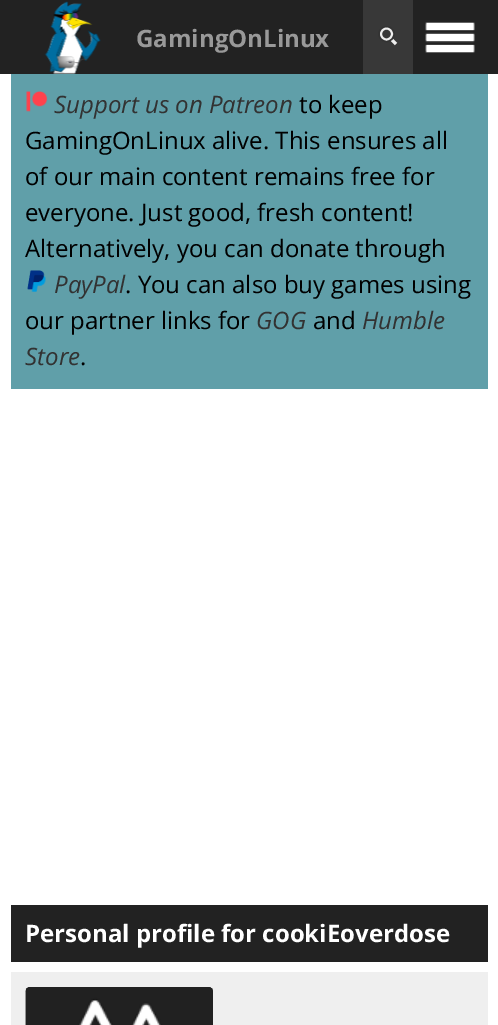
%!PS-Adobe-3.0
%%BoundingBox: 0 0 498 1025
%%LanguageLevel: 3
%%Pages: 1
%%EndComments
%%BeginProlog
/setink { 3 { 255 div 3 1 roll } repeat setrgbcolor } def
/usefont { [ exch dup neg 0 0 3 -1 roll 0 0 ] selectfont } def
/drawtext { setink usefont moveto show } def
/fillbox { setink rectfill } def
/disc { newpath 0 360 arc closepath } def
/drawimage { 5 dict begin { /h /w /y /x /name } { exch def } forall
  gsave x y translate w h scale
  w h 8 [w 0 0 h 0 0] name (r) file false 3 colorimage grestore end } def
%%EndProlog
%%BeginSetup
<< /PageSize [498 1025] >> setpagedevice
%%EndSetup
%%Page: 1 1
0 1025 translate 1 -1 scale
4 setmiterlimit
0 0 498 1025 255 255 255 fillbox
0 0 498 74 34 34 34 fillbox
(assets/img1.rgb) 44 1 57 73 drawimage
(GamingOnLinux) 136 47 /OpenSans-Bold 24 153 153 153 drawtext
363 0 50 74 56 56 56 fillbox
238 238 238 setink
3 setlinewidth
396 44 moveto 390 38 lineto stroke
386.5 34 6 disc stroke
gsave
378 26 20 19 rectclip
51 51 51 setink
1.5 setlinewidth
386.5 34 7.5 disc stroke
grestore
(assets/img2.rgb) 425 22 50 31 drawimage
11 74 477 315 96 159 169 fillbox
(assets/img3.rgb) 26 91 22 21 drawimage
(Support us on Patreon) 54 113 /OpenSans-Italic 24 50 50 50 drawtext
(to keep) 299 113 /OpenSans-Regular 24 0 0 0 drawtext
(GamingOnLinux alive. This ensures all) 25 149 /OpenSans-Regular 24 0 0 0 drawtext
(of our main content remains free for) 25 185 /OpenSans-Regular 24 0 0 0 drawtext
(everyone. Just good, fresh content!) 25 221 /OpenSans-Regular 24 0 0 0 drawtext
(Alternatively, you can donate through) 25 257 /OpenSans-Regular 24 0 0 0 drawtext
(assets/img4.rgb) 27 270 19 22 drawimage
(PayPal) 54 293 /OpenSans-Italic 24 50 50 50 drawtext
(. You can also buy games using) 125 293 /OpenSans-Regular 24 0 0 0 drawtext
(our partner links for) 25 329 /OpenSans-Regular 24 0 0 0 drawtext
(GOG) 256 329 /OpenSans-Italic 24 50 50 50 drawtext
(and) 313 329 /OpenSans-Regular 24 0 0 0 drawtext
(Humble) 362 329 /OpenSans-Italic 24 50 50 50 drawtext
(Store) 25 365 /OpenSans-Italic 24 50 50 50 drawtext
(.) 80 365 /OpenSans-Regular 24 0 0 0 drawtext
11 905 477 57 34 34 34 fillbox
(Personal profile for cookiEoverdose) 25 942 /OpenSans-Bold 24 255 255 255 drawtext
11 972 477 53 239 239 239 fillbox
(assets/img5.rgb) 25 987 188 38 drawimage
(assets/img6.rgb) 25 987 188 38 drawimage
showpage
%%EOF
